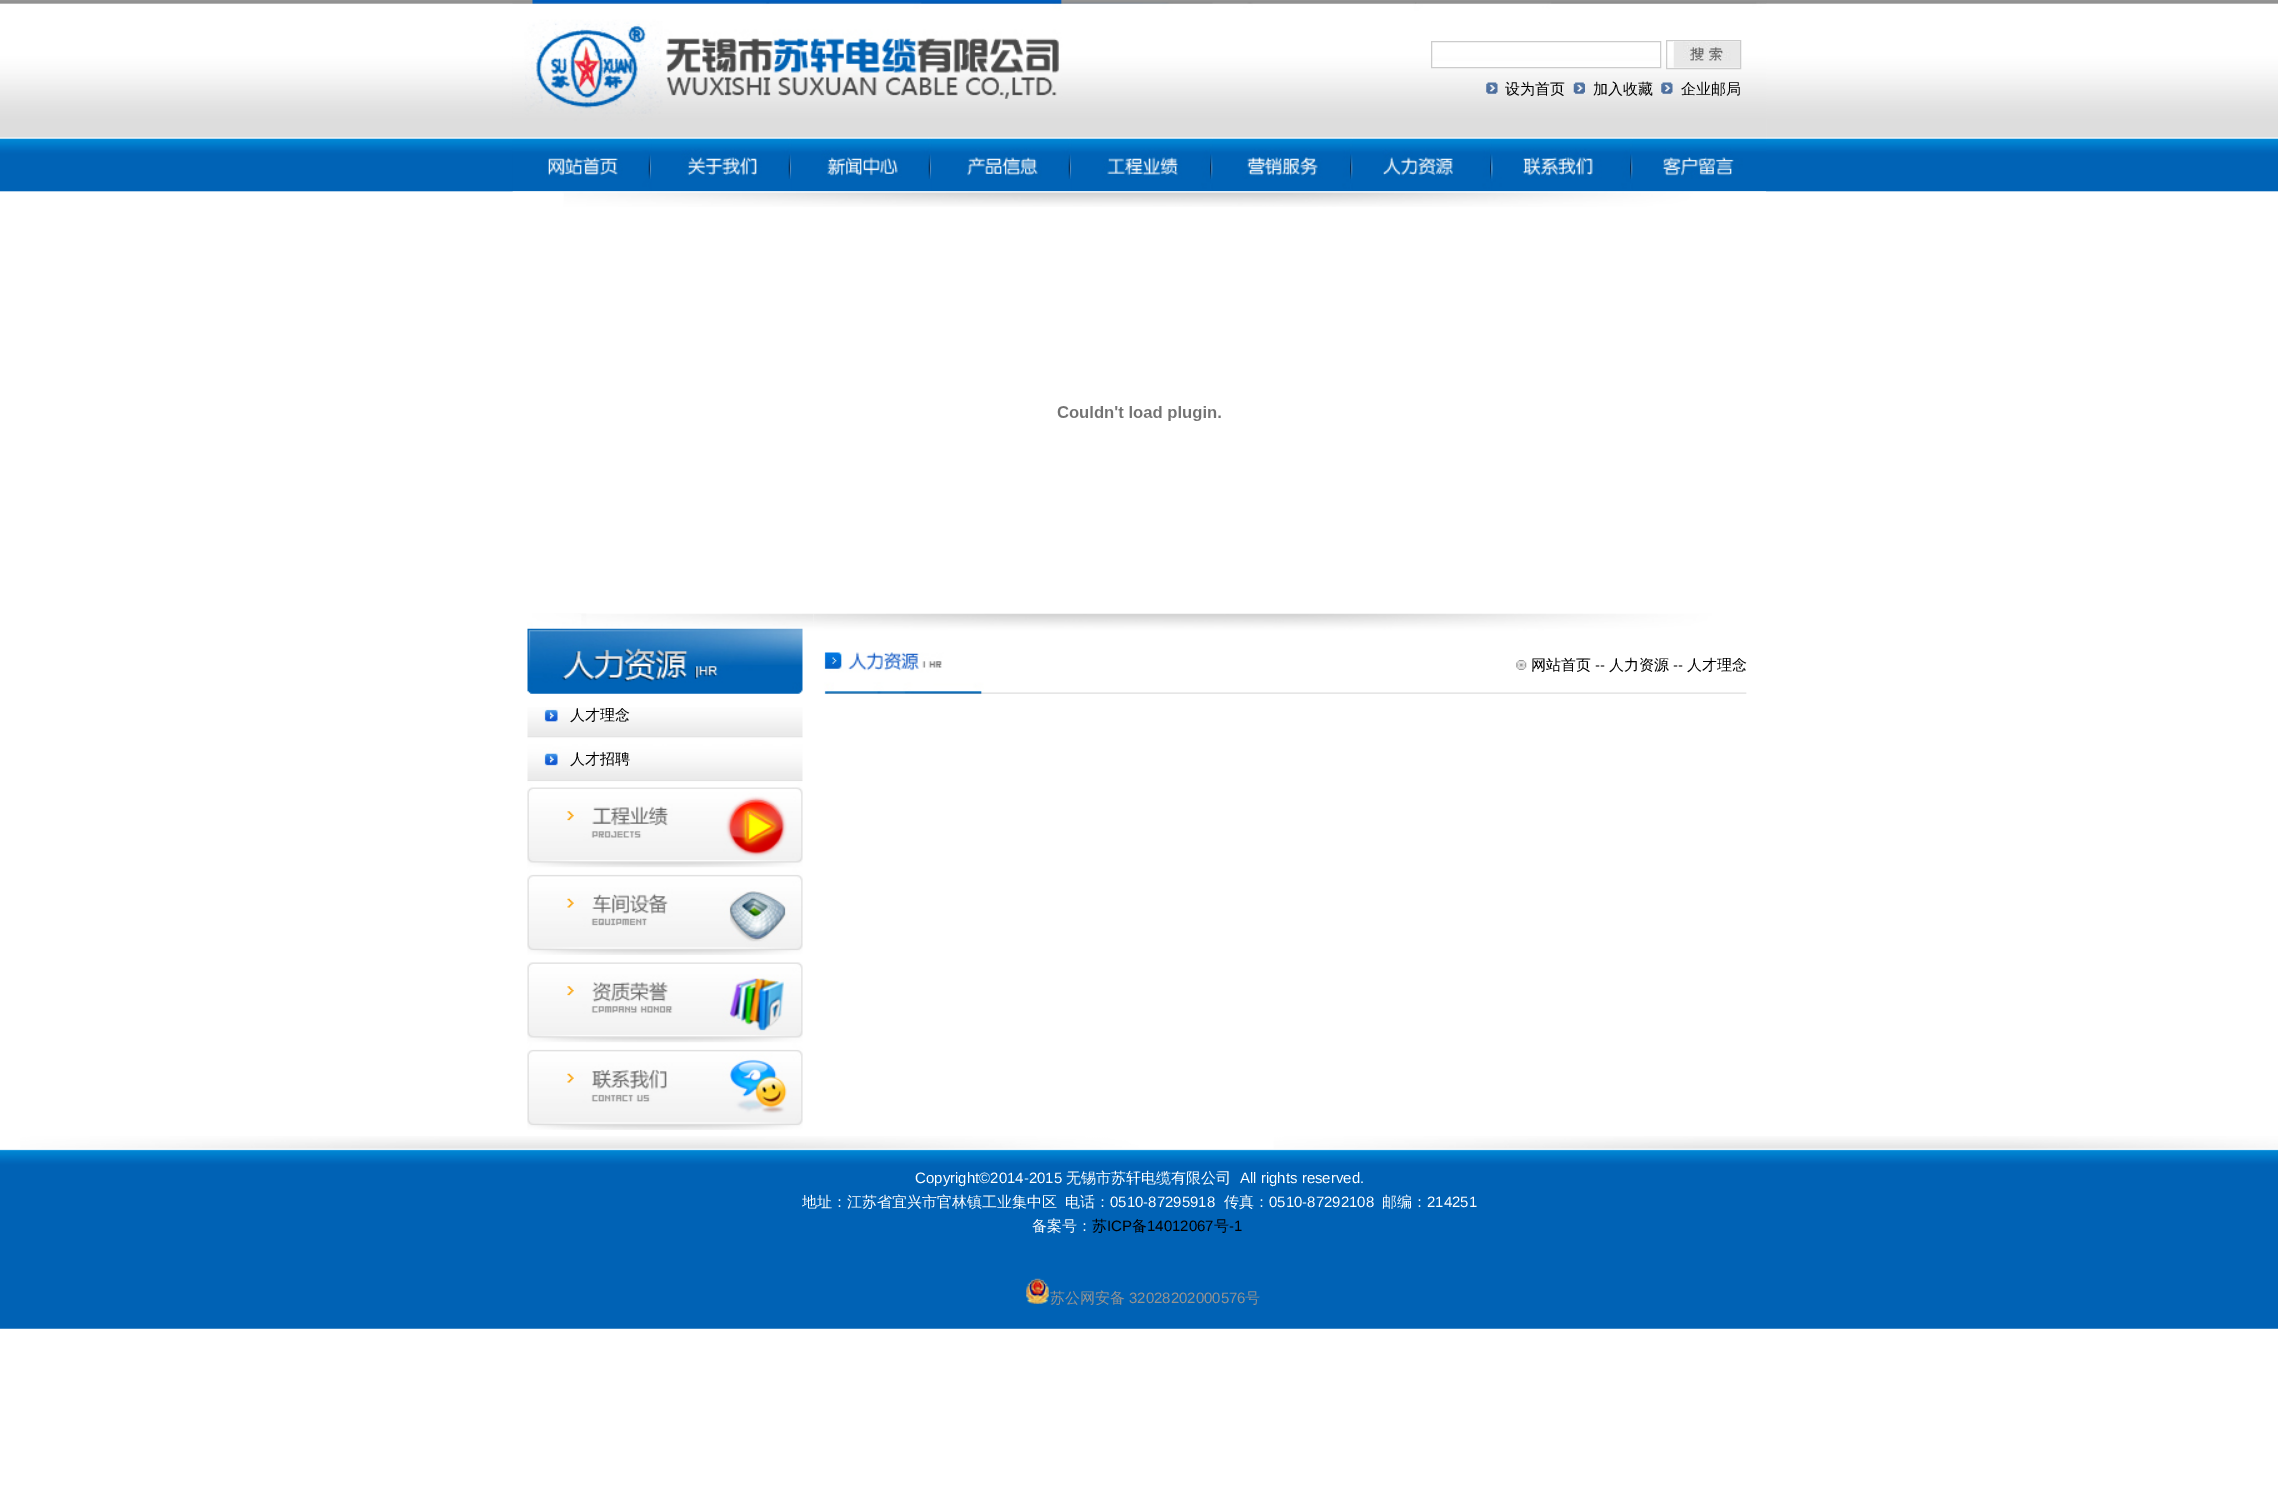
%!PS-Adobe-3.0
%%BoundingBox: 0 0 2278 1485
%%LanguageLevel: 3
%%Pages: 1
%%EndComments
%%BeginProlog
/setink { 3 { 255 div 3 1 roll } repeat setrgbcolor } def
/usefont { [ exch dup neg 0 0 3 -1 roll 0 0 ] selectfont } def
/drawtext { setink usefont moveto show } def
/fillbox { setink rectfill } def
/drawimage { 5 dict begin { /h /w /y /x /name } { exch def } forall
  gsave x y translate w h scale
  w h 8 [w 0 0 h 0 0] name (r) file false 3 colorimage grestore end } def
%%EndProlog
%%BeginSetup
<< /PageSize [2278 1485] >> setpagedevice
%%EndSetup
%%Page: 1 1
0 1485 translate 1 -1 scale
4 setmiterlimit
0 0 2278 1485 255 255 255 fillbox
(assets/img1.rgb) 0 0 2278 192 drawimage
(assets/img2.rgb) 512 0 1255 139 drawimage
1432 61 228 6 255 255 255 fillbox
204 204 204 setink
1431.5 41.5 229 26 rectstroke
1666.5 40.5 74 28 rectstroke
(assets/img3.rgb) 1673 41 67 27 drawimage
(assets/img4.rgb) 1486 82 12 12 drawimage
(设为首页) 1505 94 /WenQuanYiZenHei-Medium 15 0 0 0 drawtext
(assets/img5.rgb) 1573 82 12 12 drawimage
(加入收藏) 1593 94 /WenQuanYiZenHei-Medium 15 0 0 0 drawtext
(assets/img4.rgb) 1661 82 12 12 drawimage
(企业邮局) 1681 94 /WenQuanYiZenHei-Medium 15 0 0 0 drawtext
(assets/img6.rgb) 512 138 137 54 drawimage
(assets/img7.rgb) 648 138 4 54 drawimage
(assets/img8.rgb) 651 138 138 54 drawimage
(assets/img9.rgb) 788 138 4 54 drawimage
(assets/img10.rgb) 791 138 138 54 drawimage
(assets/img9.rgb) 928 138 4 54 drawimage
(assets/img11.rgb) 931 138 138 54 drawimage
(assets/img9.rgb) 1068 138 4 54 drawimage
(assets/img12.rgb) 1071 138 139 54 drawimage
(assets/img13.rgb) 1210 138 3 54 drawimage
(assets/img14.rgb) 1212 138 138 54 drawimage
(assets/img13.rgb) 1350 138 3 54 drawimage
(assets/img15.rgb) 1352 138 138 54 drawimage
(assets/img16.rgb) 1490 138 2 54 drawimage
(assets/img17.rgb) 1491 138 139 54 drawimage
(assets/img13.rgb) 1630 138 3 54 drawimage
(assets/img18.rgb) 1632 138 135 54 drawimage
(assets/img19.rgb) 512 191 1255 16 drawimage
(assets/img20.rgb) 1057 406 164 15 drawimage
(assets/img21.rgb) 813 613 934 81 drawimage
(assets/img22.rgb) 1516 660 11 10 drawimage
(网站首页) 1531 670 /WenQuanYiZenHei-Medium 15 0 0 0 drawtext
(--) 1595 670 /LiberationSans-Regular 15 0 0 0 drawtext
(人力资源) 1609 670 /WenQuanYiZenHei-Medium 15 0 0 0 drawtext
(--) 1673 670 /LiberationSans-Regular 15 0 0 0 drawtext
(人才理念) 1687 670 /WenQuanYiZenHei-Medium 15 0 0 0 drawtext
(assets/img23.rgb) 527 613 287 81 drawimage
(assets/img24.rgb) 527 707 276 31 drawimage
(人才理念) 570 720 /WenQuanYiZenHei-Medium 15 0 0 0 drawtext
(assets/img25.rgb) 527 737 276 45 drawimage
(人才招聘) 570 764 /WenQuanYiZenHei-Medium 15 0 0 0 drawtext
(assets/img26.rgb) 527 781 276 87 drawimage
(assets/img27.rgb) 527 867 276 88 drawimage
(assets/img28.rgb) 527 962 276 81 drawimage
(assets/img29.rgb) 527 1042 276 88 drawimage
(assets/img30.rgb) 0 1136 2278 193 drawimage
(Copyright©2014-2015) 915 1183 /LiberationSans-Regular 15 255 255 255 drawtext
(无锡市苏轩电缆有限公司) 1066 1183 /WenQuanYiZenHei-Medium 15 255 255 255 drawtext
(All rights reserved.) 1240 1183 /LiberationSans-Regular 15 255 255 255 drawtext
(地址：江苏省宜兴市官林镇工业集中区) 802 1207 /WenQuanYiZenHei-Medium 15 255 255 255 drawtext
(电话：) 1065 1207 /WenQuanYiZenHei-Medium 15 255 255 255 drawtext
(0510-87295918) 1110 1207 /LiberationSans-Regular 15 255 255 255 drawtext
(传真：) 1224 1207 /WenQuanYiZenHei-Medium 15 255 255 255 drawtext
(0510-87292108) 1269 1207 /LiberationSans-Regular 15 255 255 255 drawtext
(邮编：) 1382 1207 /WenQuanYiZenHei-Medium 15 255 255 255 drawtext
(214251) 1427 1207 /LiberationSans-Regular 15 255 255 255 drawtext
(备案号：) 1032 1231 /WenQuanYiZenHei-Medium 15 255 255 255 drawtext
(苏) 1092 1231 /WenQuanYiZenHei-Medium 15 0 0 0 drawtext
(ICP) 1107 1231 /LiberationSans-Regular 15 0 0 0 drawtext
(备) 1132 1231 /WenQuanYiZenHei-Medium 15 0 0 0 drawtext
(14012067) 1147 1231 /LiberationSans-Regular 15 0 0 0 drawtext
(号) 1214 1231 /WenQuanYiZenHei-Medium 15 0 0 0 drawtext
(-1) 1229 1231 /LiberationSans-Regular 15 0 0 0 drawtext
(assets/img31.rgb) 1026 1278 23 26 drawimage
(苏公网安备) 1050 1303 /WenQuanYiZenHei-Medium 15 147 147 147 drawtext
(32028202000576) 1129 1303 /LiberationSans-Regular 15 147 147 147 drawtext
(号) 1245 1303 /WenQuanYiZenHei-Medium 15 147 147 147 drawtext
showpage
%%EOF
